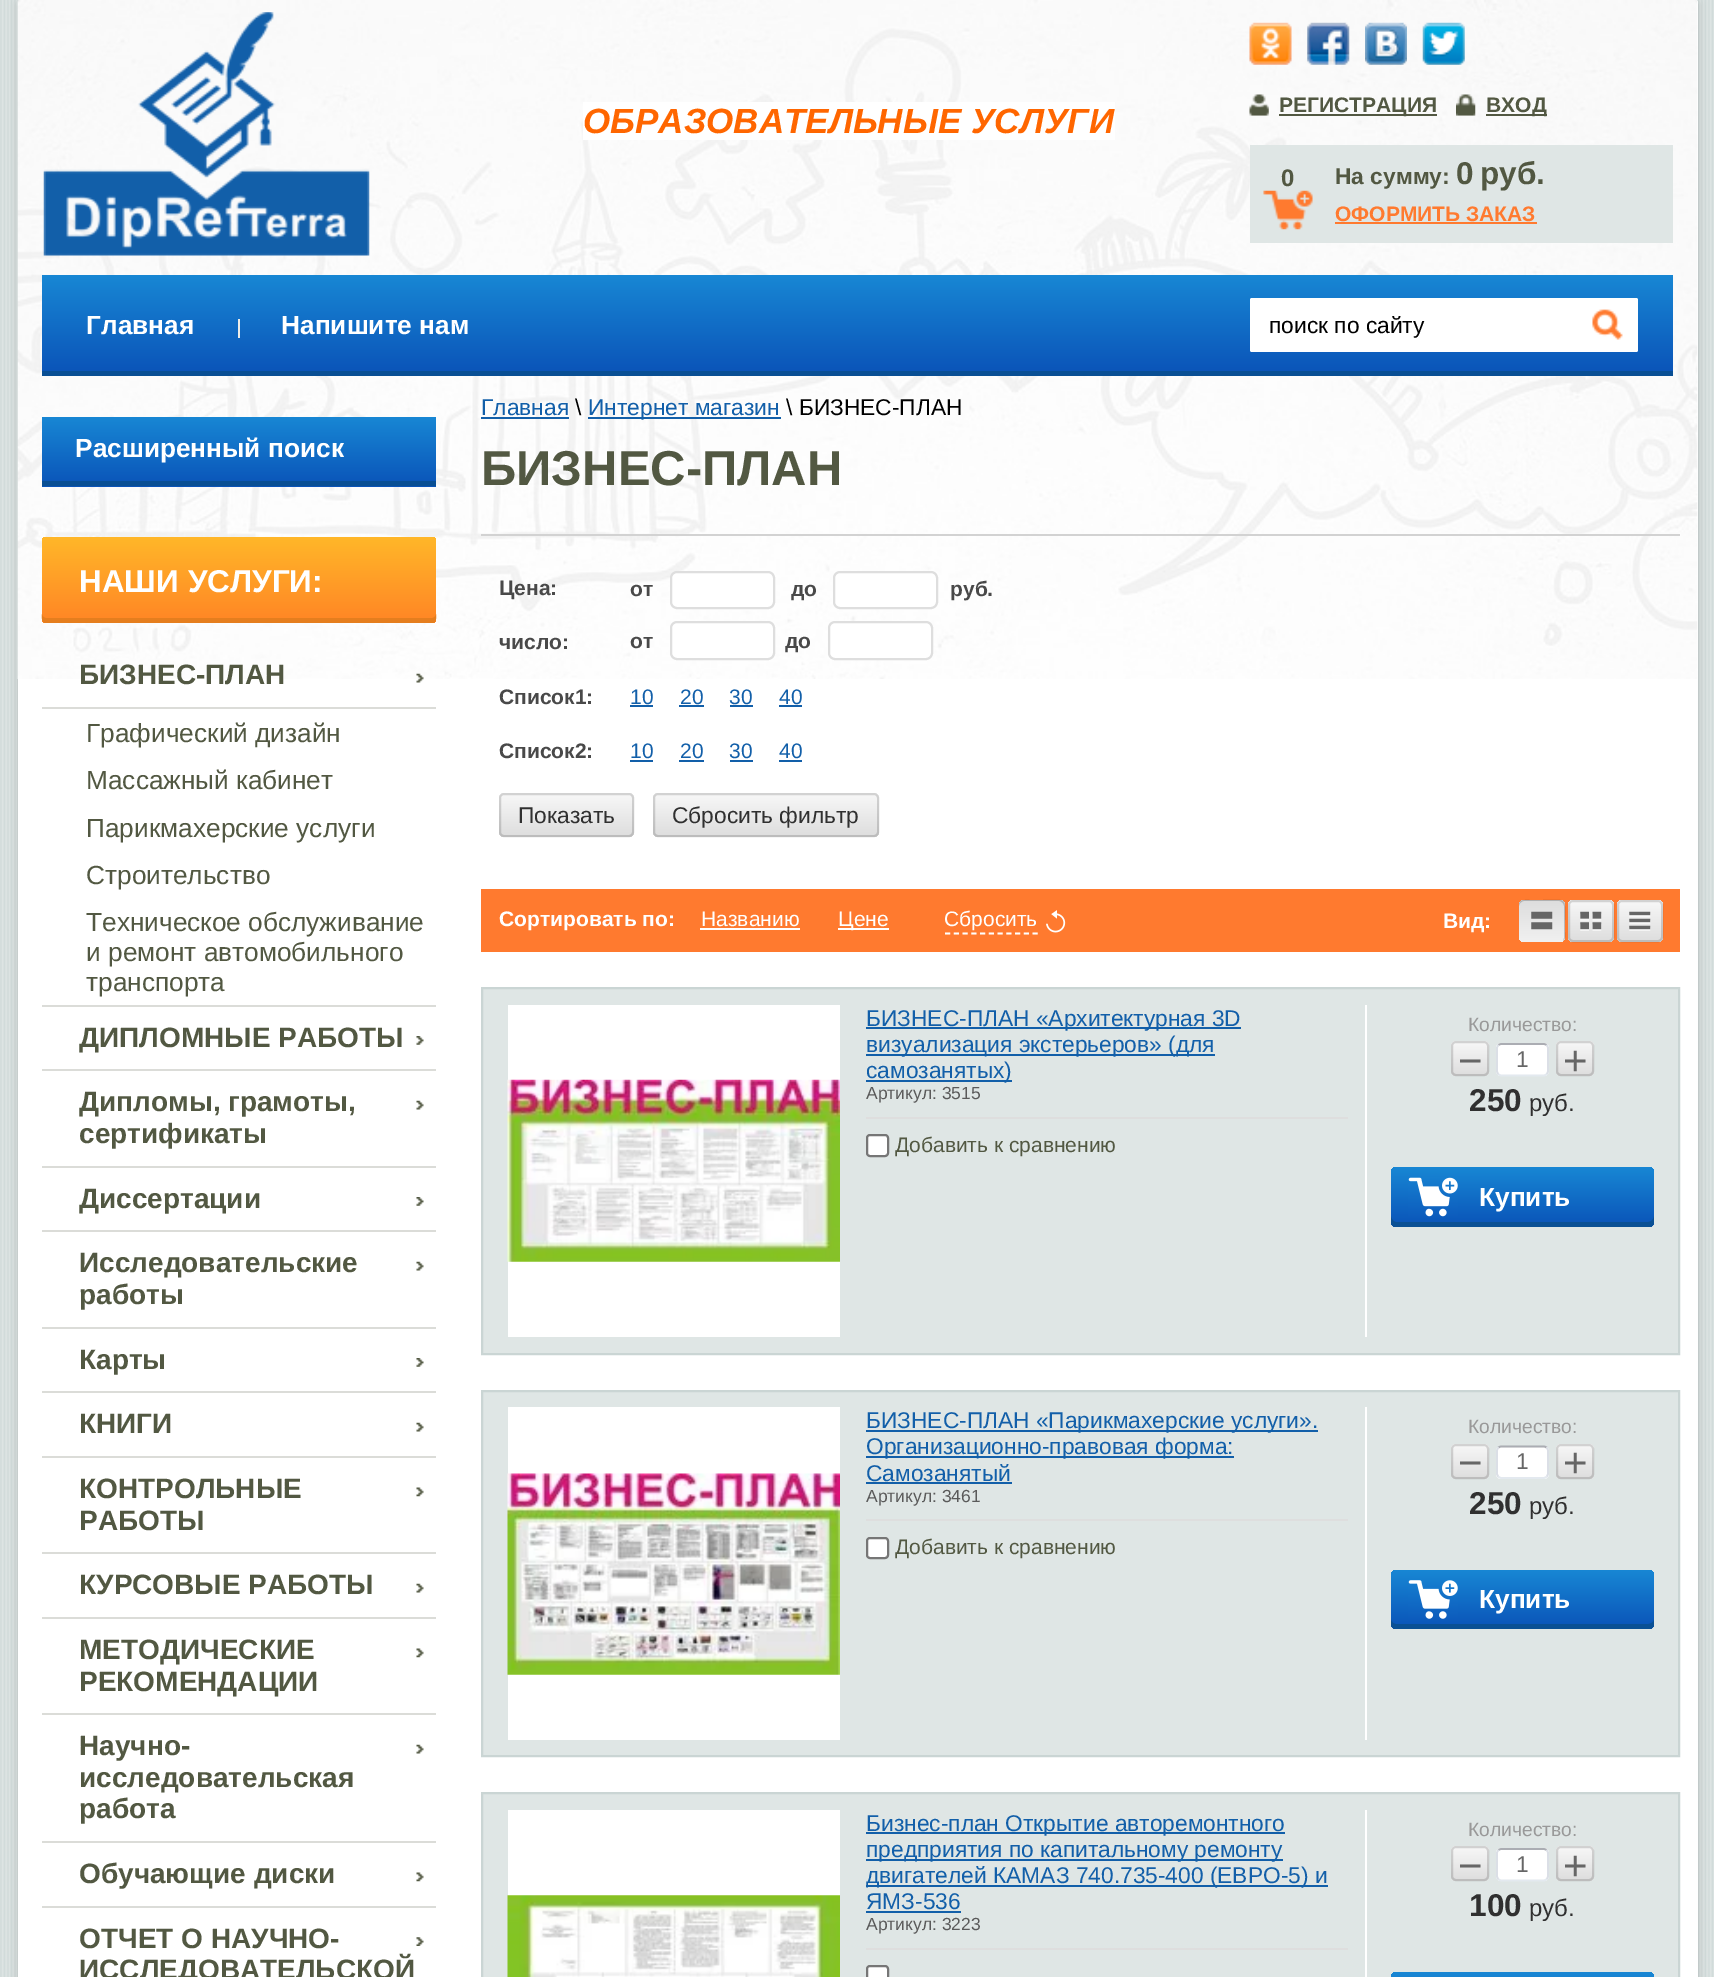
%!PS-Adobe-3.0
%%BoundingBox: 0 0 1714 1977
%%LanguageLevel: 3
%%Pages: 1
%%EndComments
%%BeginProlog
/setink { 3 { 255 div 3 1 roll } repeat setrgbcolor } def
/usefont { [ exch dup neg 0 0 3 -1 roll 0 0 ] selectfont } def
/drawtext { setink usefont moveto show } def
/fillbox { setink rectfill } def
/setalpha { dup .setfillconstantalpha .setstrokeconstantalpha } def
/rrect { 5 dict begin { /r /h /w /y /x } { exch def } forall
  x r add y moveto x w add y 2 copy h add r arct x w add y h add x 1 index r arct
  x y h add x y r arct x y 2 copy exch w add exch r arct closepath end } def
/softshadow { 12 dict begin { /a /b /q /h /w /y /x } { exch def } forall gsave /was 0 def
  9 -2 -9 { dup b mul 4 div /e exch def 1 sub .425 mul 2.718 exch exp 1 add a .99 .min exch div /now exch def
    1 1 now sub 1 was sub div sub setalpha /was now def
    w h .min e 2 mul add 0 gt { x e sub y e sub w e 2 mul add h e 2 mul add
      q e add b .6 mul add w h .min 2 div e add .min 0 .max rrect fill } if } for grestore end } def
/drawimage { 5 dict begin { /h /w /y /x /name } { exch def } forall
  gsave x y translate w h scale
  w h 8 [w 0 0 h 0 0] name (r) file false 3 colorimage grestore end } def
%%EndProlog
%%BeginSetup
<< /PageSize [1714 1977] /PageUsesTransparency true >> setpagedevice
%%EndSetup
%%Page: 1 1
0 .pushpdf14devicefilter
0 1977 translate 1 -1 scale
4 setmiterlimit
0 0 1714 1977 255 255 255 fillbox
(assets/img1.rgb) 0 0 1714 1977 drawimage
0 0 0 setink
18 2 1680 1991 2 4.5 0.15 softshadow
255 255 255 setink
18 0 1680 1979 2 rrect fill
(assets/img2.rgb) 17 0 1681 679 drawimage
(assets/img3.rgb) 43 12 327 244 drawimage
583 102 532 38 255 255 255 fillbox
(ОБРАЗОВАТЕЛЬНЫЕ УСЛУГИ) 583 133 /LiberationSans-BoldItalic 35 255 102 0 drawtext
(assets/img4.rgb) 1249 22 43 43 drawimage
(assets/img5.rgb) 1307 22 43 43 drawimage
(assets/img6.rgb) 1365 22 42 43 drawimage
(assets/img7.rgb) 1422 22 43 43 drawimage
(assets/img8.rgb) 1249 94 20 22 drawimage
1279 114 158 2 82 88 66 fillbox
(РЕГИСТРАЦИЯ) 1279 112 /LiberationSans-Bold 21 82 88 66 drawtext
(assets/img9.rgb) 1456 94 20 22 drawimage
1486 114 61 2 82 88 66 fillbox
(ВХОД) 1486 112 /LiberationSans-Bold 21 82 88 66 drawtext
1250 145 423 98 223 230 229 fillbox
(assets/img10.rgb) 1263 190 50 40 drawimage
(0) 1281 186 /LiberationSans-Bold 24 82 88 66 drawtext
(На сумму:) 1335 184 /LiberationSans-Bold 22.75 82 88 66 drawtext
(0) 1456 184 /LiberationSans-Bold 31.5 82 88 66 drawtext
(руб.) 1480 184 /LiberationSans-Bold 31.5 82 88 66 drawtext
(ОФОРМИТЬ ЗАКАЗ) 1335 221 /LiberationSans-Bold 21 255 122 47 drawtext
1335 222 202 2 255 122 47 fillbox
gsave 42 275 moveto 1673 275 lineto 1673 371 lineto 42 371 lineto closepath clip newpath
<< /ShadingType 2 /ColorSpace /DeviceRGB /Coords [858 275 858 376] /Extend [true true] /Function << /FunctionType 2 /Domain [0 1] /C0 [0.094 0.529 0.831] /C1 [0.039 0.325 0.722] /N 1 >> >> shfill grestore
42 371 1631 5 9 79 148 fillbox
(Главная) 86 334 /LiberationSans-Bold 26.25 255 255 255 drawtext
238 319 2 19 238 237 232 fillbox
(Напишите нам) 281 334 /LiberationSans-Bold 26.25 255 255 255 drawtext
1250 298 388 54 2 rrect fill
(поиск по сайту) 1269 333 /LiberationSans-Regular 22.75 0 0 0 drawtext
(assets/img11.rgb) 1592 309 31 31 drawimage
gsave 42 417 moveto 436 417 lineto 436 487 lineto 42 487 lineto closepath clip newpath
<< /ShadingType 2 /ColorSpace /DeviceRGB /Coords [239 417 239 487] /Extend [true true] /Function << /FunctionType 2 /Domain [0 1] /C0 [0.094 0.529 0.831] /C1 [0.039 0.325 0.722] /N 1 >> >> shfill grestore
42 481 394 5 9 79 148 fillbox
(Расширенный поиск) 75 457 /LiberationSans-Bold 26.25 255 255 255 drawtext
gsave 42 537 394 86 4 rrect clip newpath
<< /ShadingType 2 /ColorSpace /DeviceRGB /Coords [239 537 239 623] /Extend [true true] /Function << /FunctionType 2 /Domain [0 1] /C0 [1 0.718 0.161] /C1 [1 0.522 0.145] /N 1 >> >> shfill grestore
229 126 30 setink
42 614 moveto 42 617 41 623 46 623 curveto 432 623 lineto 437 623 436 617 436 614 curveto 436 616 434 618 432 618 curveto 46 618 lineto 44 618 42 616 42 614 curveto closepath fill
(НАШИ УСЛУГИ:) 79 592 /LiberationSans-Bold 31.5 255 255 255 drawtext
(БИЗНЕС-ПЛАН) 79 684 /LiberationSans-Bold 28 82 88 66 drawtext
(assets/img12.rgb) 416 673 8 10 drawimage
42 707 394 2 219 220 216 fillbox
(Графический дизайн) 86 742 /LiberationSans-Regular 26.25 82 88 66 drawtext
(Массажный кабинет) 86 789 /LiberationSans-Regular 26.25 82 88 66 drawtext
(Парикмахерские услуги) 86 837 /LiberationSans-Regular 26.25 82 88 66 drawtext
(Строительство) 86 884 /LiberationSans-Regular 26.25 82 88 66 drawtext
(Техническое обслуживание) 86 931 /LiberationSans-Regular 26.25 82 88 66 drawtext
(и ремонт автомобильного) 86 961 /LiberationSans-Regular 26.25 82 88 66 drawtext
(транспорта) 86 991 /LiberationSans-Regular 26.25 82 88 66 drawtext
42 1005 394 2 219 220 216 fillbox
(ДИПЛОМНЫЕ РАБОТЫ) 79 1047 /LiberationSans-Bold 28 82 88 66 drawtext
(assets/img13.rgb) 416 1036 8 9 drawimage
42 1069 394 2 219 220 216 fillbox
(Дипломы, грамоты,) 79 1111 /LiberationSans-Bold 28 82 88 66 drawtext
(assets/img14.rgb) 416 1100 8 10 drawimage
(сертификаты) 79 1143 /LiberationSans-Bold 28 82 88 66 drawtext
42 1166 394 2 219 220 216 fillbox
(Диссертации) 79 1208 /LiberationSans-Bold 28 82 88 66 drawtext
(assets/img13.rgb) 416 1197 8 9 drawimage
42 1230 394 2 219 220 216 fillbox
(Исследовательские) 79 1272 /LiberationSans-Bold 28 82 88 66 drawtext
(assets/img14.rgb) 416 1261 8 10 drawimage
(работы) 79 1304 /LiberationSans-Bold 28 82 88 66 drawtext
42 1327 394 2 219 220 216 fillbox
(Карты) 79 1369 /LiberationSans-Bold 28 82 88 66 drawtext
(assets/img13.rgb) 416 1358 8 9 drawimage
42 1391 394 2 219 220 216 fillbox
(КНИГИ) 79 1433 /LiberationSans-Bold 28 82 88 66 drawtext
(assets/img14.rgb) 416 1422 8 10 drawimage
42 1456 394 2 219 220 216 fillbox
(КОНТРОЛЬНЫЕ) 79 1498 /LiberationSans-Bold 28 82 88 66 drawtext
(assets/img15.rgb) 416 1487 8 10 drawimage
(РАБОТЫ) 79 1530 /LiberationSans-Bold 28 82 88 66 drawtext
42 1552 394 2 219 220 216 fillbox
(КУРСОВЫЕ РАБОТЫ) 79 1594 /LiberationSans-Bold 28 82 88 66 drawtext
(assets/img14.rgb) 416 1583 8 10 drawimage
42 1617 394 2 219 220 216 fillbox
(МЕТОДИЧЕСКИЕ) 79 1659 /LiberationSans-Bold 28 82 88 66 drawtext
(assets/img15.rgb) 416 1648 8 10 drawimage
(РЕКОМЕНДАЦИИ) 79 1691 /LiberationSans-Bold 28 82 88 66 drawtext
42 1713 394 2 219 220 216 fillbox
(Научно-) 79 1755 /LiberationSans-Bold 28 82 88 66 drawtext
(assets/img14.rgb) 416 1744 8 10 drawimage
(исследовательская) 79 1787 /LiberationSans-Bold 28 82 88 66 drawtext
(работа) 79 1818 /LiberationSans-Bold 28 82 88 66 drawtext
42 1841 394 2 219 220 216 fillbox
(Обучающие диски) 79 1883 /LiberationSans-Bold 28 82 88 66 drawtext
(assets/img15.rgb) 416 1872 8 10 drawimage
42 1906 394 2 219 220 216 fillbox
(ОТЧЕТ О НАУЧНО-) 79 1948 /LiberationSans-Bold 28 82 88 66 drawtext
(assets/img16.rgb) 416 1937 8 9 drawimage
(ИССЛЕДОВАТЕЛЬСКОЙ) 79 1979 /LiberationSans-Bold 28 82 88 66 drawtext
(Главная) 481 415 /LiberationSans-Regular 22.75 18 95 169 drawtext
481 417 88 2 18 95 169 fillbox
(\\) 575 415 /LiberationSans-Regular 22.75 0 0 0 drawtext
588 417 193 2 18 95 169 fillbox
(Интернет магазин) 588 415 /LiberationSans-Regular 22.75 18 95 169 drawtext
(\\ БИЗНЕС-ПЛАН) 786 415 /LiberationSans-Regular 22.75 0 0 0 drawtext
(БИЗНЕС-ПЛАН) 481 485 /LiberationSans-Bold 49 82 88 66 drawtext
481 534 1199 2 210 210 210 fillbox
(Цена:) 499 595 /LiberationSans-Bold 21 73 73 73 drawtext
(от) 630 596 /LiberationSans-Bold 21 73 73 73 drawtext
255 255 255 setink
671 572 103 36 6 rrect gsave fill grestore
222 222 222 setink
2 setlinewidth
stroke
(до) 791 596 /LiberationSans-Bold 21 73 73 73 drawtext
255 255 255 setink
834 572 103 36 6 rrect gsave fill grestore
222 222 222 setink
stroke
(руб.) 950 596 /LiberationSans-Bold 21 73 73 73 drawtext
(число:) 499 649 /LiberationSans-Bold 21 73 73 73 drawtext
(от) 630 648 /LiberationSans-Bold 21 73 73 73 drawtext
255 255 255 setink
671 622 103 37 6 rrect gsave fill grestore
222 222 222 setink
stroke
(до) 785 648 /LiberationSans-Bold 21 73 73 73 drawtext
255 255 255 setink
829 622 103 37 6 rrect gsave fill grestore
222 222 222 setink
stroke
(Список1:) 499 704 /LiberationSans-Bold 21 73 73 73 drawtext
(10) 630 704 /LiberationSans-Regular 21 18 95 169 drawtext
630 705 23 2 18 95 169 fillbox
(20) 680 704 /LiberationSans-Regular 21 18 95 169 drawtext
679 705 25 2 18 95 169 fillbox
(30) 729 704 /LiberationSans-Regular 21 18 95 169 drawtext
730 705 23 2 18 95 169 fillbox
(40) 779 704 /LiberationSans-Regular 21 18 95 169 drawtext
779 705 23 2 18 95 169 fillbox
(Список2:) 499 758 /LiberationSans-Bold 21 73 73 73 drawtext
(10) 630 758 /LiberationSans-Regular 21 18 95 169 drawtext
630 760 23 2 18 95 169 fillbox
(20) 680 758 /LiberationSans-Regular 21 18 95 169 drawtext
679 760 25 2 18 95 169 fillbox
(30) 729 758 /LiberationSans-Regular 21 18 95 169 drawtext
730 760 23 2 18 95 169 fillbox
(40) 779 758 /LiberationSans-Regular 21 18 95 169 drawtext
779 760 23 2 18 95 169 fillbox
gsave 499 793 135 44 5 rrect clip newpath
<< /ShadingType 2 /ColorSpace /DeviceRGB /Coords [566 793 566 837] /Extend [true true] /Function << /FunctionType 2 /Domain [0 1] /C0 [0.973 0.973 0.973] /C1 [0.867 0.867 0.867] /N 1 >> >> shfill grestore
0.15 setalpha
0 0 0 setink
500 794 133 42 4 rrect stroke
1 setalpha
(Показать) 518 823 /LiberationSans-Regular 22.75 48 48 48 drawtext
gsave 653 793 226 44 5 rrect clip newpath
<< /ShadingType 2 /ColorSpace /DeviceRGB /Coords [766 793 766 837] /Extend [true true] /Function << /FunctionType 2 /Domain [0 1] /C0 [0.973 0.973 0.973] /C1 [0.867 0.867 0.867] /N 1 >> >> shfill grestore
0.15 setalpha
0 0 0 setink
654 794 224 42 4 rrect stroke
1 setalpha
(Сбросить фильтр) 672 823 /LiberationSans-Regular 22.75 48 48 48 drawtext
481 889 1199 63 255 122 47 fillbox
(Сортировать по:) 499 926 /LiberationSans-Bold 21 255 255 255 drawtext
(Названию) 701 926 /LiberationSans-Regular 21 255 255 255 drawtext
700 928 100 2 255 255 255 fillbox
838 928 51 2 255 255 255 fillbox
(Цене) 838 926 /LiberationSans-Regular 21 255 255 255 drawtext
1.8 setlinewidth
[5.25 3.5] 0 setdash
945 933.5 moveto 1038 933.5 lineto stroke
(Сбросить) 944 926 /LiberationSans-Regular 21 255 255 255 drawtext
(assets/img17.rgb) 1046 910 20 23 drawimage
(Вид:) 1443 928 /LiberationSans-Bold 21 255 255 255 drawtext
gsave 1519 900 46 42 5 rrect clip newpath
<< /ShadingType 2 /ColorSpace /DeviceRGB /Coords [1542 942 1542 900] /Extend [true true] /Function << /FunctionType 2 /Domain [0 1] /C0 [0.945 0.945 0.945] /C1 [0.867 0.867 0.867] /N 1 >> >> shfill grestore
0.2 setalpha
0 0 0 setink
1524 901 moveto 1559 901 lineto 1562 901 1564 904 1564 906 curveto 1564 938 lineto 1563 941 lineto 1566 939 1565 935 1565 932 curveto 1565 921 lineto 1565 896 1568 900 1542 900 curveto 1530 900 lineto 1524 900 1519 899 1519 906 curveto 1519 904 1521 901 1524 901 curveto closepath fill
1 setalpha
(assets/img18.rgb) 1531 911 22 19 drawimage
gsave 1568 900 46 42 5 rrect clip newpath
<< /ShadingType 2 /ColorSpace /DeviceRGB /Coords [1591 900 1591 942] /Extend [true true] /Function << /FunctionType 2 /Domain [0 1] /C0 [0.973 0.973 0.973] /C1 [0.867 0.867 0.867] /N 1 >> >> shfill grestore
0.15 setalpha
2 setlinewidth
[] 0 setdash
1569 901 44 40 4 rrect stroke
1 setalpha
(assets/img19.rgb) 1580 911 22 20 drawimage
gsave 1617 900 46 42 5 rrect clip newpath
<< /ShadingType 2 /ColorSpace /DeviceRGB /Coords [1640 900 1640 942] /Extend [true true] /Function << /FunctionType 2 /Domain [0 1] /C0 [0.973 0.973 0.973] /C1 [0.867 0.867 0.867] /N 1 >> >> shfill grestore
0.15 setalpha
1618 901 44 40 4 rrect stroke
1 setalpha
(assets/img20.rgb) 1629 911 22 20 drawimage
223 230 229 setink
482 988 moveto 1679 988 lineto 1679 1354 lineto 482 1354 lineto closepath gsave fill grestore
202 213 212 setink
stroke
508 1005 332 332 255 255 255 fillbox
(assets/img21.rgb) 507 1079 333 183 drawimage
866 1027 375 2 18 95 169 fillbox
(БИЗНЕС-ПЛАН «Архитектурная 3D) 866 1026 /LiberationSans-Regular 22.75 18 95 169 drawtext
866 1054 349 2 18 95 169 fillbox
(визуализация экстерьеров» \(для) 866 1052 /LiberationSans-Regular 22.75 18 95 169 drawtext
866 1080 146 2 18 95 169 fillbox
(самозанятых\)) 866 1078 /LiberationSans-Regular 22.75 18 95 169 drawtext
(Артикул: 3515) 866 1099 /LiberationSans-Regular 17.5 90 90 90 drawtext
866 1117 482 2 222 222 222 fillbox
255 255 255 setink
867 1135 21 21 3 rrect gsave fill grestore
118 118 118 setink
stroke
(Добавить к сравнению) 895 1152 /LiberationSans-Regular 21 82 88 66 drawtext
1365 1005 2 332 255 255 255 fillbox
(Количество:) 1468 1031 /LiberationSans-Regular 19.25 153 153 153 drawtext
gsave 1451 1041 38 35 5 rrect clip newpath
<< /ShadingType 2 /ColorSpace /DeviceRGB /Coords [1470 1041 1470 1076] /Extend [true true] /Function << /FunctionType 2 /Domain [0 1] /C0 [0.973 0.973 0.973] /C1 [0.867 0.867 0.867] /N 1 >> >> shfill grestore
0.15 setalpha
0 0 0 setink
1452 1042 36 33 4 rrect stroke
1 setalpha
(−) 1458 1075 /LiberationSans-Regular 42 102 102 102 drawtext
255 255 255 setink
1496 1043 53 33 5 rrect fill
171 173 179 setink
1.8 setlinewidth
1498.5 1045 moveto 1499 1044.5 1500.5 1044 1501.5 1044 curveto 1543.5 1044 lineto 1544.5 1044 1546 1044.5 1546.5 1045 curveto stroke
219 223 230 setink
1546.5 1045 moveto 1547.5 1046 1548 1047 1548 1048 curveto 1548 1071 lineto 1548 1072 1547.5 1073.5 1546.5 1074 curveto stroke
227 233 239 setink
1546.5 1074 moveto 1546 1075 1544.5 1075.5 1543.5 1075.5 curveto 1501.5 1075.5 lineto 1500.5 1075.5 1499 1075 1498.5 1074 curveto stroke
219 223 230 setink
1498.5 1074 moveto 1497.5 1073.5 1497 1072 1497 1071 curveto 1497 1048 lineto 1497 1047 1497.5 1046 1498.5 1045 curveto stroke
(1) 1516 1067 /LiberationSans-Regular 22.75 102 102 102 drawtext
gsave 1556 1041 38 35 5 rrect clip newpath
<< /ShadingType 2 /ColorSpace /DeviceRGB /Coords [1575 1041 1575 1076] /Extend [true true] /Function << /FunctionType 2 /Domain [0 1] /C0 [0.973 0.973 0.973] /C1 [0.867 0.867 0.867] /N 1 >> >> shfill grestore
0.15 setalpha
0 0 0 setink
2 setlinewidth
1557 1042 36 33 4 rrect stroke
1 setalpha
(+) 1563 1075 /LiberationSans-Regular 42 102 102 102 drawtext
(250) 1469 1111 /LiberationSans-Bold 31.5 48 48 48 drawtext
(руб.) 1529 1111 /LiberationSans-Regular 24 48 48 48 drawtext
gsave 1391 1167 263 60 5 rrect clip newpath
<< /ShadingType 2 /ColorSpace /DeviceRGB /Coords [1523 1167 1523 1227] /Extend [true true] /Function << /FunctionType 2 /Domain [0 1] /C0 [0.094 0.529 0.831] /C1 [0.039 0.325 0.722] /N 1 >> >> shfill grestore
10 80 148 setink
1391 1216 moveto 1391 1222 lineto 1391 1225 1393 1227 1396 1227 curveto 1649 1227 lineto 1652 1227 1654 1225 1654 1222 curveto 1654 1216 lineto 1654 1219 1651 1222 1648 1222 curveto 1396 1222 lineto 1394 1222 1391 1219 1391 1216 curveto closepath fill
(assets/img22.rgb) 1408 1177 50 40 drawimage
(Купить) 1479 1206 /LiberationSans-Bold 26.25 255 255 255 drawtext
223 230 229 setink
482 1391 moveto 1679 1391 lineto 1679 1756 lineto 482 1756 lineto closepath gsave fill grestore
202 213 212 setink
stroke
508 1407 332 333 255 255 255 fillbox
(assets/img23.rgb) 507 1473 333 202 drawimage
866 1430 452 2 18 95 169 fillbox
(БИЗНЕС-ПЛАН «Парикмахерские услуги».) 866 1428 /LiberationSans-Regular 22.75 18 95 169 drawtext
866 1456 368 2 18 95 169 fillbox
(Организационно-правовая форма:) 866 1454 /LiberationSans-Regular 22.75 18 95 169 drawtext
(Самозанятый) 866 1481 /LiberationSans-Regular 22.75 18 95 169 drawtext
866 1482 146 2 18 95 169 fillbox
(Артикул: 3461) 866 1502 /LiberationSans-Regular 17.5 90 90 90 drawtext
866 1519 482 2 222 222 222 fillbox
255 255 255 setink
867 1538 21 20 3 rrect gsave fill grestore
118 118 118 setink
stroke
(Добавить к сравнению) 895 1554 /LiberationSans-Regular 21 82 88 66 drawtext
1365 1407 2 333 255 255 255 fillbox
(Количество:) 1468 1433 /LiberationSans-Regular 19.25 153 153 153 drawtext
gsave 1451 1444 38 35 5 rrect clip newpath
<< /ShadingType 2 /ColorSpace /DeviceRGB /Coords [1470 1444 1470 1479] /Extend [true true] /Function << /FunctionType 2 /Domain [0 1] /C0 [0.973 0.973 0.973] /C1 [0.867 0.867 0.867] /N 1 >> >> shfill grestore
0.15 setalpha
0 0 0 setink
1452 1445 36 33 4 rrect stroke
1 setalpha
(−) 1458 1477 /LiberationSans-Regular 42 102 102 102 drawtext
255 255 255 setink
1496 1446 53 33 5 rrect fill
171 173 179 setink
1.8 setlinewidth
1498.5 1447.5 moveto 1499 1447 1500.5 1446.5 1501.5 1446.5 curveto 1543.5 1446.5 lineto 1544.5 1446.5 1546 1447 1546.5 1447.5 curveto stroke
219 223 230 setink
1546.5 1447.5 moveto 1547.5 1448.5 1548 1449.5 1548 1451 curveto 1548 1473.5 lineto 1548 1474.5 1547.5 1476 1546.5 1476.5 curveto stroke
227 233 239 setink
1546.5 1476.5 moveto 1546 1477.5 1544.5 1478 1543.5 1478 curveto 1501.5 1478 lineto 1500.5 1478 1499 1477.5 1498.5 1476.5 curveto stroke
219 223 230 setink
1498.5 1476.5 moveto 1497.5 1476 1497 1474.5 1497 1473.5 curveto 1497 1451 lineto 1497 1449.5 1497.5 1448.5 1498.5 1447.5 curveto stroke
(1) 1516 1469 /LiberationSans-Regular 22.75 102 102 102 drawtext
gsave 1556 1444 38 35 5 rrect clip newpath
<< /ShadingType 2 /ColorSpace /DeviceRGB /Coords [1575 1444 1575 1479] /Extend [true true] /Function << /FunctionType 2 /Domain [0 1] /C0 [0.973 0.973 0.973] /C1 [0.867 0.867 0.867] /N 1 >> >> shfill grestore
0.15 setalpha
0 0 0 setink
2 setlinewidth
1557 1445 36 33 4 rrect stroke
1 setalpha
(+) 1563 1477 /LiberationSans-Regular 42 102 102 102 drawtext
(250) 1469 1514 /LiberationSans-Bold 31.5 48 48 48 drawtext
(руб.) 1529 1514 /LiberationSans-Regular 24 48 48 48 drawtext
gsave 1391 1570 263 59 5 rrect clip newpath
<< /ShadingType 2 /ColorSpace /DeviceRGB /Coords [1523 1570 1523 1629] /Extend [true true] /Function << /FunctionType 2 /Domain [0 1] /C0 [0.094 0.529 0.831] /C1 [0.039 0.325 0.722] /N 1 >> >> shfill grestore
10 80 148 setink
1391 1619 moveto 1391 1624 lineto 1391 1627 1393 1629 1396 1629 curveto 1649 1629 lineto 1652 1629 1654 1627 1654 1624 curveto 1654 1619 lineto 1654 1622 1651 1624 1648 1624 curveto 1396 1624 lineto 1394 1624 1391 1622 1391 1619 curveto closepath fill
(assets/img24.rgb) 1408 1580 50 39 drawimage
(Купить) 1479 1608 /LiberationSans-Bold 26.25 255 255 255 drawtext
223 230 229 setink
482 1793 moveto 1679 1793 lineto 1679 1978 lineto 482 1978 lineto closepath gsave fill grestore
202 213 212 setink
stroke
508 1810 332 86 255 255 255 fillbox
(assets/img25.rgb) 507 1895 333 82 drawimage
866 1832 419 2 18 95 169 fillbox
(Бизнес-план Открытие авторемонтного) 866 1831 /LiberationSans-Regular 22.75 18 95 169 drawtext
866 1859 417 2 18 95 169 fillbox
(предприятия по капитальному ремонту) 866 1857 /LiberationSans-Regular 22.75 18 95 169 drawtext
866 1885 462 2 18 95 169 fillbox
(двигателей КАМАЗ 740.735-400 \(ЕВРО-5\) и) 866 1883 /LiberationSans-Regular 22.75 18 95 169 drawtext
(ЯМЗ-536) 866 1909 /LiberationSans-Regular 22.75 18 95 169 drawtext
866 1911 95 2 18 95 169 fillbox
(Артикул: 3223) 866 1930 /LiberationSans-Regular 17.5 90 90 90 drawtext
866 1948 482 2 222 222 222 fillbox
255 255 255 setink
867 1966 21 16 3 rrect gsave fill grestore
118 118 118 setink
stroke
1365 1810 2 167 255 255 255 fillbox
(Количество:) 1468 1836 /LiberationSans-Regular 19.25 153 153 153 drawtext
gsave 1451 1846 38 35 5 rrect clip newpath
<< /ShadingType 2 /ColorSpace /DeviceRGB /Coords [1470 1846 1470 1881] /Extend [true true] /Function << /FunctionType 2 /Domain [0 1] /C0 [0.973 0.973 0.973] /C1 [0.867 0.867 0.867] /N 1 >> >> shfill grestore
0.15 setalpha
0 0 0 setink
1452 1847 36 33 4 rrect stroke
1 setalpha
(−) 1458 1880 /LiberationSans-Regular 42 102 102 102 drawtext
255 255 255 setink
1496 1848 53 33 5 rrect fill
171 173 179 setink
1.8 setlinewidth
1498.5 1850 moveto 1499 1849.5 1500.5 1849 1501.5 1849 curveto 1543.5 1849 lineto 1544.5 1849 1546 1849.5 1546.5 1850 curveto stroke
219 223 230 setink
1546.5 1850 moveto 1547.5 1851 1548 1852 1548 1853 curveto 1548 1876 lineto 1548 1877 1547.5 1878.5 1546.5 1879 curveto stroke
227 233 239 setink
1546.5 1879 moveto 1546 1880 1544.5 1880.5 1543.5 1880.5 curveto 1501.5 1880.5 lineto 1500.5 1880.5 1499 1880 1498.5 1879 curveto stroke
219 223 230 setink
1498.5 1879 moveto 1497.5 1878.5 1497 1877 1497 1876 curveto 1497 1853 lineto 1497 1852 1497.5 1851 1498.5 1850 curveto stroke
(1) 1516 1872 /LiberationSans-Regular 22.75 102 102 102 drawtext
gsave 1556 1846 38 35 5 rrect clip newpath
<< /ShadingType 2 /ColorSpace /DeviceRGB /Coords [1575 1846 1575 1881] /Extend [true true] /Function << /FunctionType 2 /Domain [0 1] /C0 [0.973 0.973 0.973] /C1 [0.867 0.867 0.867] /N 1 >> >> shfill grestore
0.15 setalpha
0 0 0 setink
2 setlinewidth
1557 1847 36 33 4 rrect stroke
1 setalpha
(+) 1563 1880 /LiberationSans-Regular 42 102 102 102 drawtext
(100) 1469 1916 /LiberationSans-Bold 31.5 48 48 48 drawtext
(руб.) 1529 1916 /LiberationSans-Regular 24 48 48 48 drawtext
gsave 1391 1972 263 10 5 rrect clip newpath
<< /ShadingType 2 /ColorSpace /DeviceRGB /Coords [1523 1972 1523 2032] /Extend [true true] /Function << /FunctionType 2 /Domain [0 1] /C0 [0.094 0.529 0.831] /C1 [0.039 0.325 0.722] /N 1 >> >> shfill grestore
.poppdf14devicefilter showpage
%%EOF
